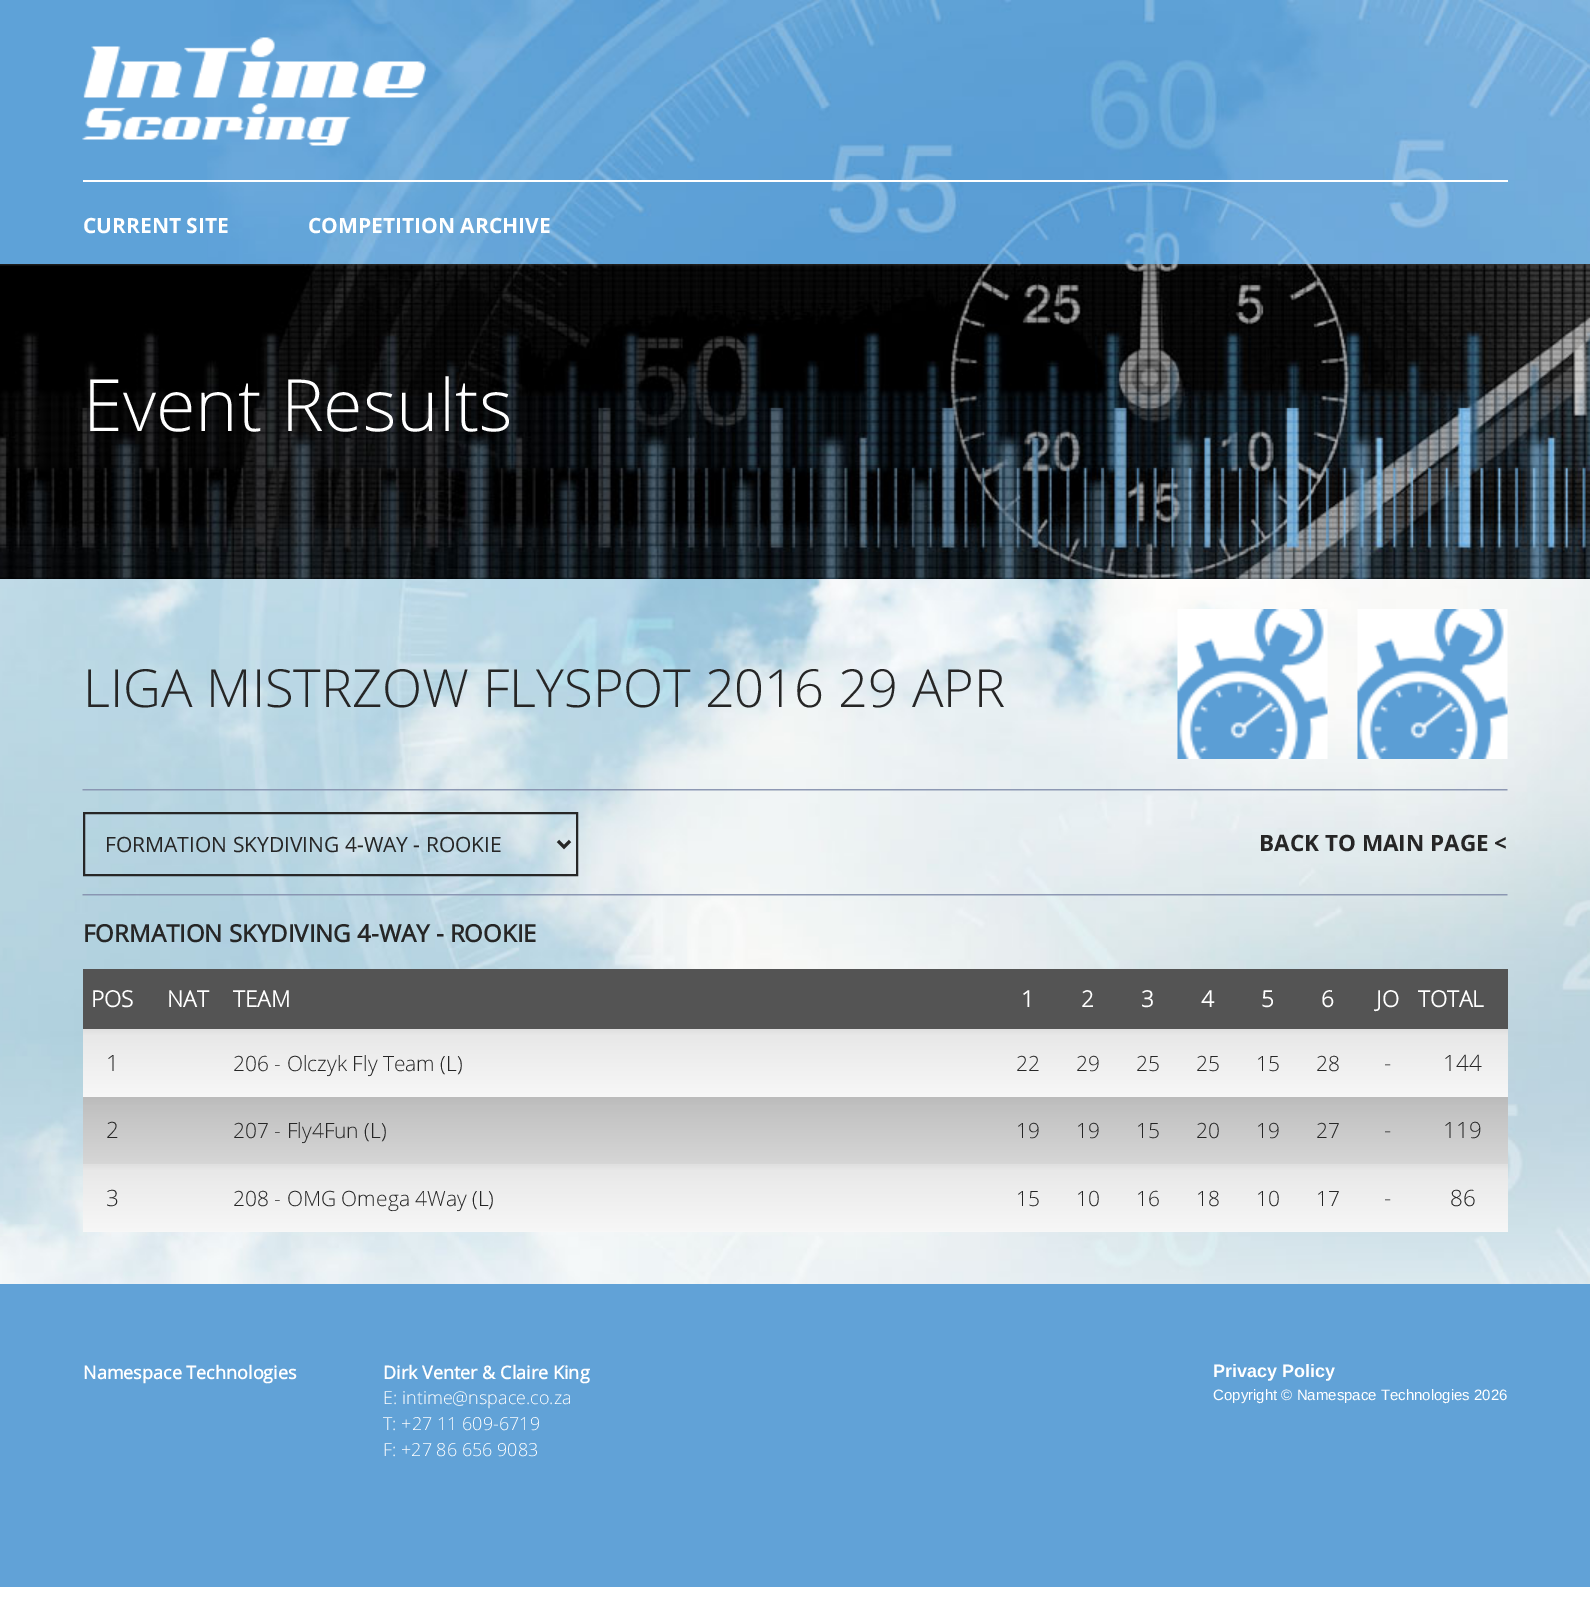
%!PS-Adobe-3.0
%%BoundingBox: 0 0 1590 1618
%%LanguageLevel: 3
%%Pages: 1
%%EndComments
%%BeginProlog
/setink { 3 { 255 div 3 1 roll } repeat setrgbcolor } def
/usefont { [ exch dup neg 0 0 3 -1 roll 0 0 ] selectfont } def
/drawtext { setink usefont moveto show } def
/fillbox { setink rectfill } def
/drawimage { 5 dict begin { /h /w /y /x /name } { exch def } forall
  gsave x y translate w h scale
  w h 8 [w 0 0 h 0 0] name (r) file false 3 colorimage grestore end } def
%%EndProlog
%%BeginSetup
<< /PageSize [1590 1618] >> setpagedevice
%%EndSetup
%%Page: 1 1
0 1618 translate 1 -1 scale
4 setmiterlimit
0 0 1590 1618 255 255 255 fillbox
(assets/img1.rgb) 0 579 1590 705 drawimage
0 0 207 264 94 162 216 fillbox
(assets/img2.rgb) 207 0 1383 264 drawimage
(assets/img3.rgb) 82 37 344 109 drawimage
83 180 1425 2 255 255 255 fillbox
(CURRENT SITE) 83 233 /OpenSans-Bold 21 255 255 255 drawtext
(COMPETITION ARCHIVE) 308 233 /OpenSans-Bold 21 255 255 255 drawtext
(assets/img4.rgb) 0 264 1590 315 drawimage
(Event Results) 83 431 /OpenSans-Light 72 255 255 255 drawtext
(LIGA MISTRZOW FLYSPOT 2016 29 APR) 83 707 /OpenSans-Light 52.5 38 38 38 drawtext
(assets/img5.rgb) 1177 609 151 150 drawimage
(assets/img6.rgb) 1357 609 151 150 drawimage
(assets/img7.rgb) 82 789 1426 2 drawimage
2 setlinewidth
84 813 493 62 rectstroke
3 setlinewidth
558 841 moveto 564 847 lineto 570 841 lineto stroke
(FORMATION SKYDIVING 4-WAY - ROOKIE) 105 852 /OpenSans-Regular 21 38 38 38 drawtext
(BACK TO MAIN PAGE <) 1259 851 /OpenSans-Bold 22.5 38 38 38 drawtext
(assets/img8.rgb) 82 894 1426 2 drawimage
(FORMATION SKYDIVING 4-WAY - ROOKIE) 83 942 /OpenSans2-Bold 24 38 38 38 drawtext
83 969 1425 60 84 84 84 fillbox
(POS) 91 1007 /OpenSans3-Bold 22.5 255 255 255 drawtext
(NAT) 167 1007 /OpenSans3-Bold 22.5 255 255 255 drawtext
(TEAM) 233 1007 /OpenSans3-Bold 22.5 255 255 255 drawtext
(1) 1021 1007 /OpenSans3-Bold 22.5 255 255 255 drawtext
(2) 1081 1007 /OpenSans3-Bold 22.5 255 255 255 drawtext
(3) 1141 1007 /OpenSans3-Bold 22.5 255 255 255 drawtext
(4) 1201 1007 /OpenSans3-Bold 22.5 255 255 255 drawtext
(5) 1261 1007 /OpenSans3-Bold 22.5 255 255 255 drawtext
(6) 1321 1007 /OpenSans3-Bold 22.5 255 255 255 drawtext
(JO) 1376 1007 /OpenSans3-Bold 22.5 255 255 255 drawtext
(TOTAL) 1418 1007 /OpenSans3-Bold 22.5 255 255 255 drawtext
gsave 83 1029 moveto 1508 1029 lineto 1508 1097 lineto 83 1097 lineto closepath clip newpath
<< /ShadingType 2 /ColorSpace /DeviceRGB /Coords [795 1029 795 1097] /Extend [true true] /Function << /FunctionType 3 /Domain [0 1] /Functions [<< /FunctionType 2 /Domain [0 1] /C0 [0.878 0.878 0.878] /C1 [0.878 0.878 0.878] /N 1 >> << /FunctionType 2 /Domain [0 1] /C0 [0.878 0.878 0.878] /C1 [0.91 0.91 0.91] /N 1 >> << /FunctionType 2 /Domain [0 1] /C0 [0.91 0.91 0.91] /C1 [0.969 0.969 0.969] /N 1 >>] /Bounds [0.01 0.1] /Encode [0 1 0 1 0 1] >> >> shfill grestore
(1) 106 1071 /OpenSans-Light 22.5 38 38 38 drawtext
(206 - Olczyk Fly Team \(L\)) 233 1071 /OpenSans-Light 21 38 38 38 drawtext
(22) 1016 1071 /OpenSans-Light 21 38 38 38 drawtext
(29) 1076 1071 /OpenSans-Light 21 38 38 38 drawtext
(25) 1136 1071 /OpenSans-Light 21 38 38 38 drawtext
(25) 1196 1071 /OpenSans-Light 21 38 38 38 drawtext
(15) 1256 1071 /OpenSans-Light 21 38 38 38 drawtext
(28) 1316 1071 /OpenSans-Light 21 38 38 38 drawtext
(-) 1384 1071 /OpenSans-Light 22.5 38 38 38 drawtext
(144) 1443 1071 /OpenSans-Light 22.5 38 38 38 drawtext
gsave 83 1097 moveto 1508 1097 lineto 1508 1164 lineto 83 1164 lineto closepath clip newpath
<< /ShadingType 2 /ColorSpace /DeviceRGB /Coords [795 1097 795 1164] /Extend [true true] /Function << /FunctionType 3 /Domain [0 1] /Functions [<< /FunctionType 2 /Domain [0 1] /C0 [0.733 0.733 0.733] /C1 [0.757 0.757 0.757] /N 1 >> << /FunctionType 2 /Domain [0 1] /C0 [0.757 0.757 0.757] /C1 [0.839 0.839 0.839] /N 1 >>] /Bounds [0.14] /Encode [0 1 0 1] >> >> shfill grestore
(2) 106 1138 /OpenSans-Light 22.5 38 38 38 drawtext
(207 - Fly4Fun \(L\)) 233 1138 /OpenSans-Light 21 38 38 38 drawtext
(19) 1016 1138 /OpenSans-Light 21 38 38 38 drawtext
(19) 1076 1138 /OpenSans-Light 21 38 38 38 drawtext
(15) 1136 1138 /OpenSans-Light 21 38 38 38 drawtext
(20) 1196 1138 /OpenSans-Light 21 38 38 38 drawtext
(19) 1256 1138 /OpenSans-Light 21 38 38 38 drawtext
(27) 1316 1138 /OpenSans-Light 21 38 38 38 drawtext
(-) 1384 1138 /OpenSans-Light 22.5 38 38 38 drawtext
(119) 1443 1138 /OpenSans-Light 22.5 38 38 38 drawtext
gsave 83 1164 moveto 1508 1164 lineto 1508 1232 lineto 83 1232 lineto closepath clip newpath
<< /ShadingType 2 /ColorSpace /DeviceRGB /Coords [795 1164 795 1232] /Extend [true true] /Function << /FunctionType 3 /Domain [0 1] /Functions [<< /FunctionType 2 /Domain [0 1] /C0 [0.878 0.878 0.878] /C1 [0.878 0.878 0.878] /N 1 >> << /FunctionType 2 /Domain [0 1] /C0 [0.878 0.878 0.878] /C1 [0.91 0.91 0.91] /N 1 >> << /FunctionType 2 /Domain [0 1] /C0 [0.91 0.91 0.91] /C1 [0.969 0.969 0.969] /N 1 >>] /Bounds [0.01 0.1] /Encode [0 1 0 1 0 1] >> >> shfill grestore
(3) 106 1206 /OpenSans-Light 22.5 38 38 38 drawtext
(208 - OMG Omega 4Way \(L\)) 233 1206 /OpenSans-Light 21 38 38 38 drawtext
(15) 1016 1206 /OpenSans-Light 21 38 38 38 drawtext
(10) 1076 1206 /OpenSans-Light 21 38 38 38 drawtext
(16) 1136 1206 /OpenSans-Light 21 38 38 38 drawtext
(18) 1196 1206 /OpenSans-Light 21 38 38 38 drawtext
(10) 1256 1206 /OpenSans-Light 21 38 38 38 drawtext
(17) 1316 1206 /OpenSans-Light 21 38 38 38 drawtext
(-) 1384 1206 /OpenSans-Light 22.5 38 38 38 drawtext
(86) 1450 1206 /OpenSans-Light 22.5 38 38 38 drawtext
0 1284 1590 303 97 162 215 fillbox
(Namespace Technologies) 83 1379 /OpenSans2-Bold 18 255 255 255 drawtext
(Dirk Venter & Claire King) 383 1379 /OpenSans2-Bold 18 255 255 255 drawtext
(E: intime@nspace.co.za) 383 1404 /OpenSans-Light 18 255 255 255 drawtext
(T: +27 11 609-6719) 383 1430 /OpenSans-Light 18 255 255 255 drawtext
(F: +27 86 656 9083) 383 1456 /OpenSans-Light 18 255 255 255 drawtext
(Privacy Policy) 1213 1377 /LiberationSans-Bold 18 255 255 255 drawtext
(Copyright © Namespace Technologies 2026) 1213 1400 /LiberationSans-Regular 15 255 255 255 drawtext
showpage
%%EOF
